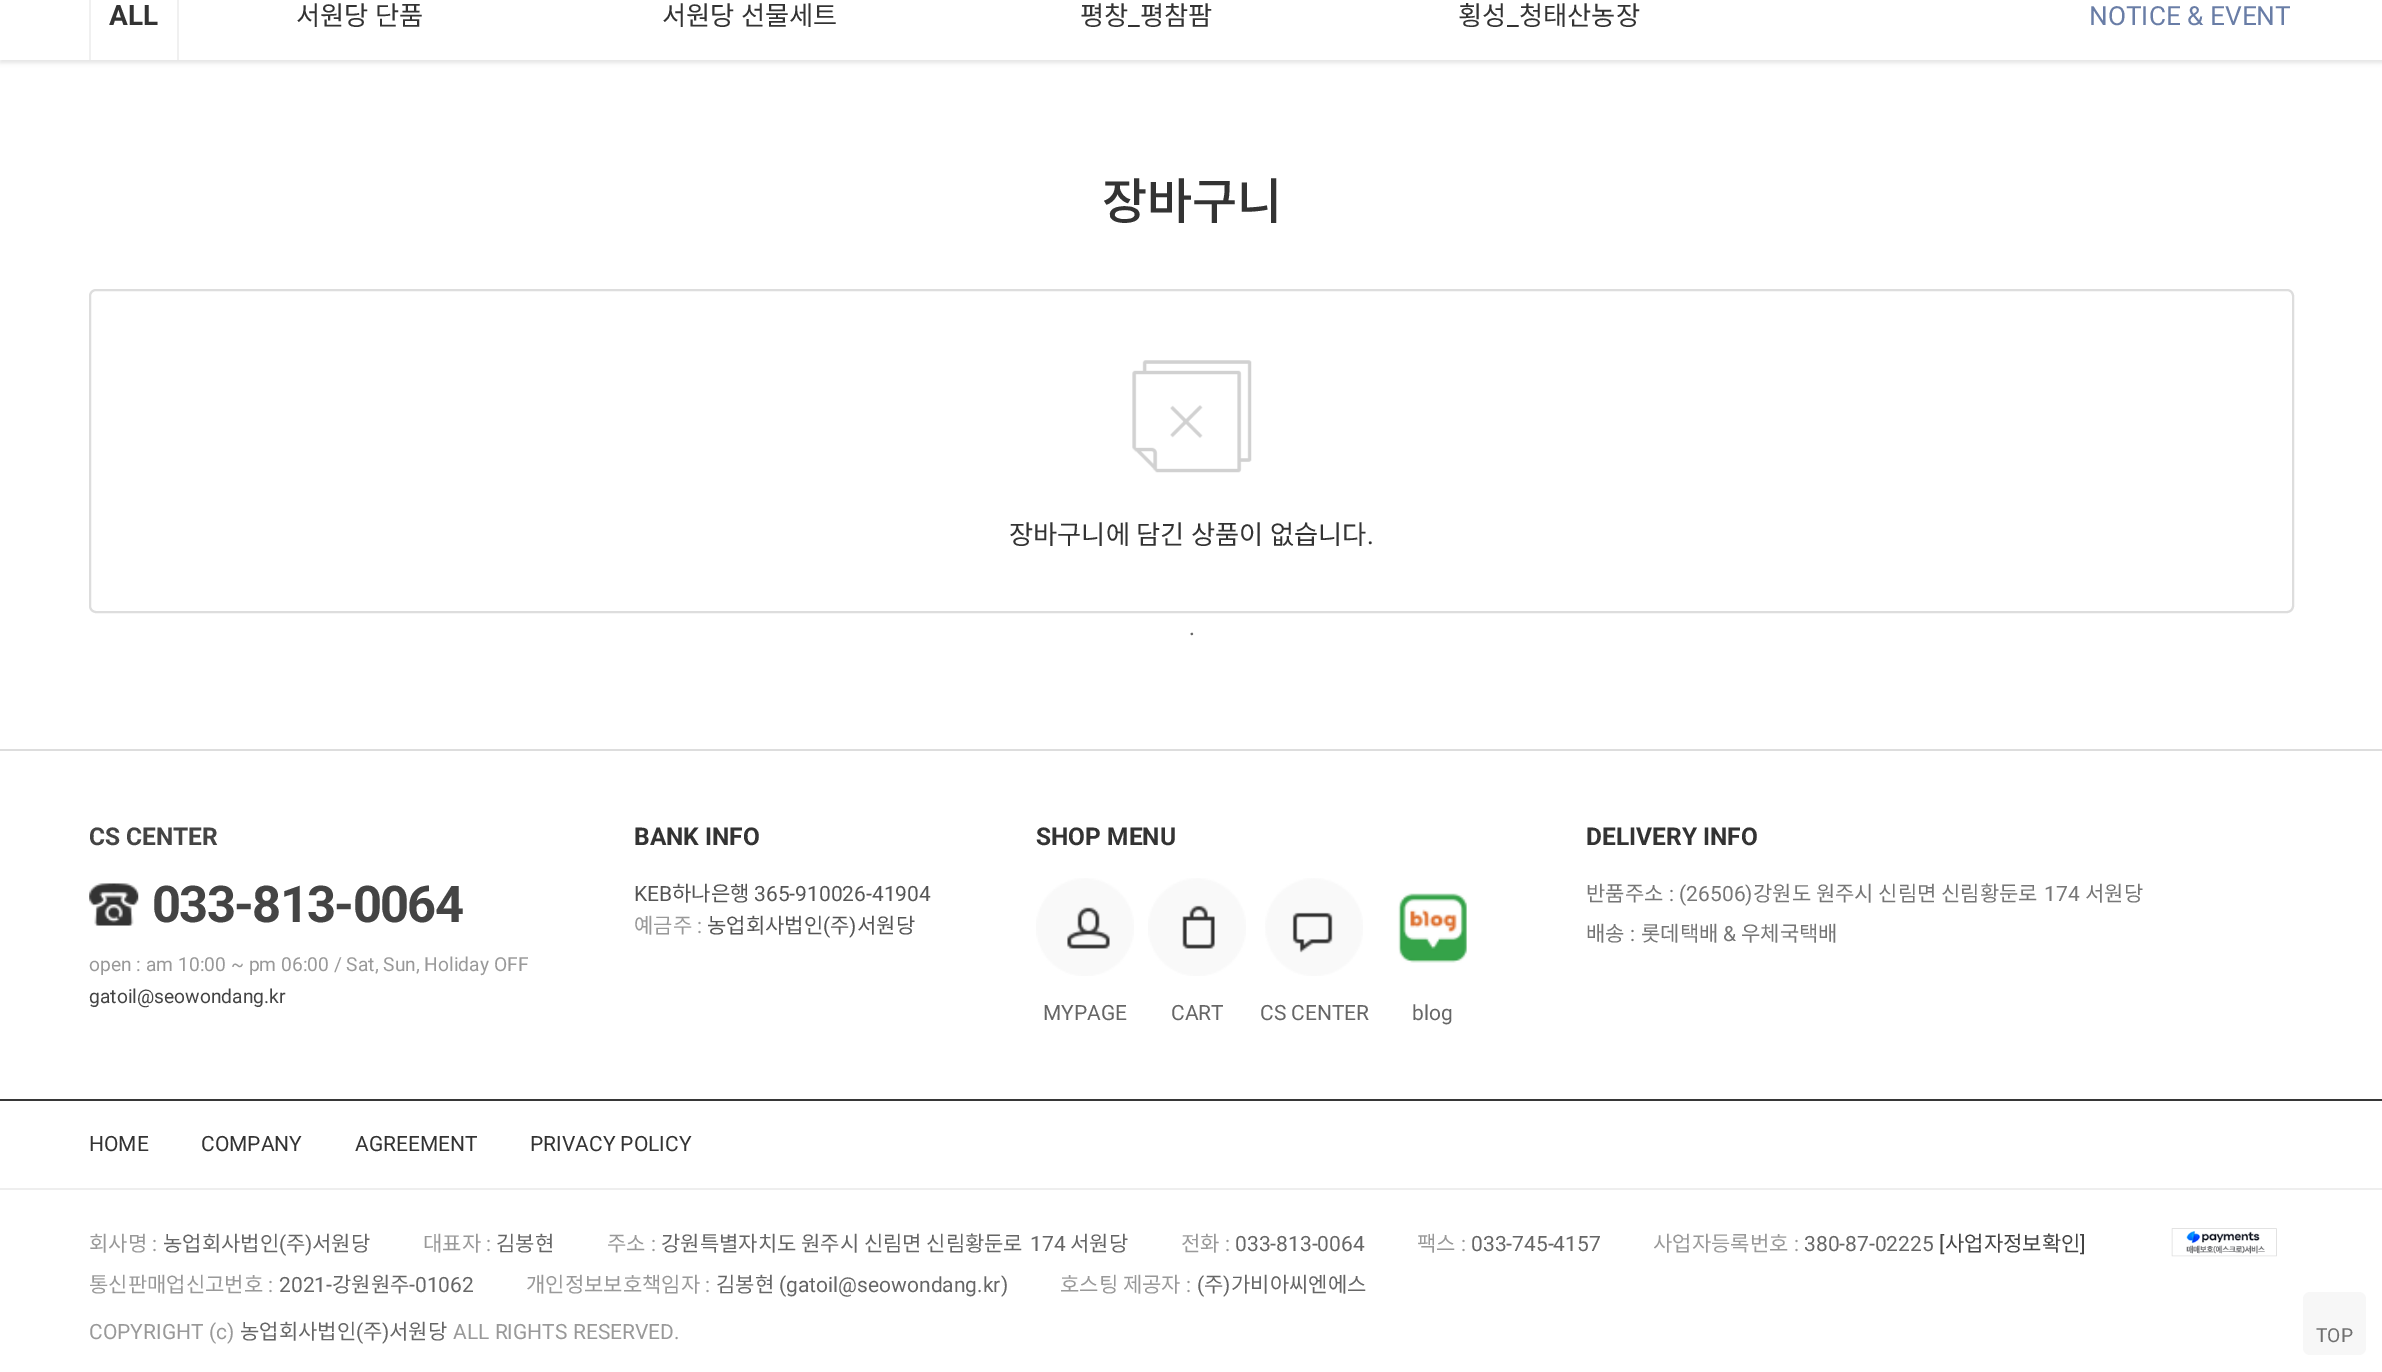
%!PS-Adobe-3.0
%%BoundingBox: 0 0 2382 1372
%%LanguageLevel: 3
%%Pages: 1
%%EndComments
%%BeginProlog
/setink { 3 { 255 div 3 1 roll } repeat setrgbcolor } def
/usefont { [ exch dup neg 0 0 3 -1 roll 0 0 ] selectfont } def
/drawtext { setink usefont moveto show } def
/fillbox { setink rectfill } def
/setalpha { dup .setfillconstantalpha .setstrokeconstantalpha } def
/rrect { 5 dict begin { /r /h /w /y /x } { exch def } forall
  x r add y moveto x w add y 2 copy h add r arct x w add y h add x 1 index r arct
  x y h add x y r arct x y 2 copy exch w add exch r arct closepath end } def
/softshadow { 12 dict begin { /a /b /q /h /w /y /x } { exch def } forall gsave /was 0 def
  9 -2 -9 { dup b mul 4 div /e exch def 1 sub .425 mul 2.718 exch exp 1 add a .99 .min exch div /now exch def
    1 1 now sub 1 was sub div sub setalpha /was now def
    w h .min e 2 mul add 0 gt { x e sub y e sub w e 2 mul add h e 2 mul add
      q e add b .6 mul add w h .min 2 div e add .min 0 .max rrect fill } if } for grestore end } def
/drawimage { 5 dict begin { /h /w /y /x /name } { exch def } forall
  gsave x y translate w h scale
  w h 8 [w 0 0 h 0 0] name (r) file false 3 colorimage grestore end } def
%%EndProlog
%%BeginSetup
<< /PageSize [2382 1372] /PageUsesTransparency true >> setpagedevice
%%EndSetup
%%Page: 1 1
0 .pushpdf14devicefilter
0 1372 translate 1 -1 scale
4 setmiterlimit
0 0 2382 1372 255 255 255 fillbox
0 0 0 setink
0 -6 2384 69 0 2 0.1 softshadow
0 0 2382 60 255 255 255 fillbox
177 0 2 60 240 240 240 fillbox
89 0 2 60 240 240 240 fillbox
(ALL) 109 25 /Roboto-Bold 28 51 51 51 drawtext
/NotoSansKR-Regular 26.25 usefont
296 25 moveto 0.5 0 32 (서원당 단품) widthshow
662 25 moveto 0.5 0 32 (서원당 선물세트) widthshow
(평창) 1080 25 /NotoSansKR-Regular 26.25 51 51 51 drawtext
(_) 1128 25 /Roboto-Regular 26.25 51 51 51 drawtext
(평참팜) 1140 25 /NotoSansKR-Regular 26.25 51 51 51 drawtext
(횡성) 1458 25 /NotoSansKR-Regular 26.25 51 51 51 drawtext
(_) 1507 25 /Roboto-Regular 26.25 51 51 51 drawtext
(청태산농장) 1519 25 /NotoSansKR-Regular 26.25 51 51 51 drawtext
(NOTICE & EVENT) 2089 25 /Roboto-Regular 26.25 105 125 166 drawtext
(장바구니) 1102 219 /NotoSansKR-Medium 49 51 51 51 drawtext
(assets/img1.rgb) 1132 360 120 113 drawimage
221 221 221 setink
2 setlinewidth
90 290 2203 322 6 rrect stroke
/NotoSansKR-Regular 26.25 usefont
51 51 51 setink
1009 544 moveto 0.5 0 32 (장바구니에 담긴 상품이 없습니다) widthshow
(.) 1367 544 /Roboto-Regular 26.25 51 51 51 drawtext
(.) 1189 635 /Roboto-Regular 23 102 102 102 drawtext
0 749 2382 2 221 221 221 fillbox
(CS CENTER) 89 845 /Roboto-Bold 24.5 68 68 68 drawtext
(assets/img2.rgb) 89 883 50 43 drawimage
/Roboto-Bold 50.75 usefont
152 922 moveto -1.75 0 (033-813-0064) ashow
(open : am 10:00 ~ pm 06:00 / Sat, Sun, Holiday OFF) 89 971 /Roboto-Regular 19.25 153 153 153 drawtext
(gatoil@seowondang.kr) 89 1003 /Roboto-Regular 19.25 68 68 68 drawtext
(BANK INFO) 634 845 /Roboto-Bold 24.5 51 51 51 drawtext
(KEB) 634 901 /Roboto-Regular 21 85 85 85 drawtext
(하나은행) 672 901 /NotoSansKR-Regular 21 85 85 85 drawtext
(365-910026-41904) 754 901 /Roboto-Regular 21 85 85 85 drawtext
(예금주) 634 933 /NotoSansKR-Regular 21 153 153 153 drawtext
(:) 697 933 /Roboto-Regular 21 153 153 153 drawtext
(농업회사법인) 707 933 /NotoSansKR-Regular 21 85 85 85 drawtext
(\() 823 933 /Roboto-Regular 21 85 85 85 drawtext
(주) 830 933 /NotoSansKR-Regular 21 85 85 85 drawtext
(\)) 849 933 /Roboto-Regular 21 85 85 85 drawtext
(서원당) 857 933 /NotoSansKR-Regular 21 85 85 85 drawtext
(SHOP MENU) 1036 845 /Roboto-Bold 24.5 51 51 51 drawtext
(assets/img3.rgb) 1036 878 98 98 drawimage
(MYPAGE) 1043 1020 /Roboto-Regular 21 102 102 102 drawtext
(assets/img4.rgb) 1148 878 98 98 drawimage
(CART) 1171 1020 /Roboto-Regular 21 102 102 102 drawtext
(assets/img5.rgb) 1265 878 98 98 drawimage
(CS CENTER) 1260 1020 /Roboto-Regular 21 102 102 102 drawtext
(assets/img6.rgb) 1398 893 69 70 drawimage
(blog) 1412 1020 /Roboto-Regular 21 102 102 102 drawtext
(DELIVERY INFO) 1586 845 /Roboto-Bold 24.5 51 51 51 drawtext
(반품주소) 1586 901 /NotoSansKR-Regular 21 118 118 118 drawtext
(: \(26506\)) 1669 901 /Roboto-Regular 21 118 118 118 drawtext
(강원도 원주시 신림면 신림황둔로) 1753 901 /NotoSansKR-Regular 21 118 118 118 drawtext
(174) 2044 901 /Roboto-Regular 21 118 118 118 drawtext
(서원당) 2085 901 /NotoSansKR-Regular 21 118 118 118 drawtext
(배송) 1586 941 /NotoSansKR-Regular 21 118 118 118 drawtext
(:) 1630 941 /Roboto-Regular 21 118 118 118 drawtext
(롯데택배) 1641 941 /NotoSansKR-Regular 21 118 118 118 drawtext
(&) 1723 941 /Roboto-Regular 21 118 118 118 drawtext
(우체국택배) 1741 941 /NotoSansKR-Regular 21 118 118 118 drawtext
0 1099 2382 2 55 55 55 fillbox
(HOME) 89 1151 /Roboto-Regular 21 51 51 51 drawtext
(COMPANY) 201 1151 /Roboto-Regular 21 51 51 51 drawtext
(AGREEMENT) 355 1151 /Roboto-Regular 21 51 51 51 drawtext
(PRIVACY POLICY) 530 1151 /Roboto-Regular 21 51 51 51 drawtext
0 1188 2382 2 238 238 238 fillbox
(회사명) 89 1251 /NotoSansKR-Regular 21 153 153 153 drawtext
(:) 152 1251 /Roboto-Regular 21 153 153 153 drawtext
(농업회사법인) 163 1251 /NotoSansKR-Regular 21 102 102 102 drawtext
(\() 279 1251 /Roboto-Regular 21 102 102 102 drawtext
(주) 286 1251 /NotoSansKR-Regular 21 102 102 102 drawtext
(\)) 305 1251 /Roboto-Regular 21 102 102 102 drawtext
(서원당) 312 1251 /NotoSansKR-Regular 21 102 102 102 drawtext
(대표자) 423 1251 /NotoSansKR-Regular 21 153 153 153 drawtext
(:) 486 1251 /Roboto-Regular 21 153 153 153 drawtext
(김봉현) 496 1251 /NotoSansKR-Regular 21 102 102 102 drawtext
(주소) 607 1251 /NotoSansKR-Regular 21 153 153 153 drawtext
(:) 651 1251 /Roboto-Regular 21 153 153 153 drawtext
(강원특별자치도 원주시 신림면 신림황둔로) 661 1251 /NotoSansKR-Regular 21 102 102 102 drawtext
(174) 1030 1251 /Roboto-Regular 21 102 102 102 drawtext
(서원당) 1070 1251 /NotoSansKR-Regular 21 102 102 102 drawtext
(전화) 1181 1251 /NotoSansKR-Regular 21 153 153 153 drawtext
(:) 1225 1251 /Roboto-Regular 21 153 153 153 drawtext
(033-813-0064) 1235 1251 /Roboto-Regular 21 102 102 102 drawtext
(팩스) 1417 1251 /NotoSansKR-Regular 21 153 153 153 drawtext
(:) 1461 1251 /Roboto-Regular 21 153 153 153 drawtext
(033-745-4157) 1471 1251 /Roboto-Regular 21 102 102 102 drawtext
(사업자등록번호) 1653 1251 /NotoSansKR-Regular 21 153 153 153 drawtext
(:) 1794 1251 /Roboto-Regular 21 153 153 153 drawtext
(380-87-02225) 1804 1251 /Roboto-Regular 21 102 102 102 drawtext
([) 1939 1251 /Roboto-Regular 21 68 68 68 drawtext
(사업자정보확인) 1945 1251 /NotoSansKR-Regular 21 68 68 68 drawtext
(]) 2080 1251 /Roboto-Regular 21 68 68 68 drawtext
(통신판매업신고번호) 89 1292 /NotoSansKR-Regular 21 153 153 153 drawtext
(:) 268 1292 /Roboto-Regular 21 153 153 153 drawtext
(2021-) 279 1292 /Roboto-Regular 21 102 102 102 drawtext
(강원원주) 332 1292 /NotoSansKR-Regular 21 102 102 102 drawtext
(-01062) 409 1292 /Roboto-Regular 21 102 102 102 drawtext
(개인정보보호책임자) 526 1292 /NotoSansKR-Regular 21 153 153 153 drawtext
(:) 705 1292 /Roboto-Regular 21 153 153 153 drawtext
(김봉현) 716 1292 /NotoSansKR-Regular 21 102 102 102 drawtext
(\(gatoil@seowondang.kr\)) 779 1292 /Roboto-Regular 21 102 102 102 drawtext
(호스팅 제공자) 1060 1292 /NotoSansKR-Regular 21 153 153 153 drawtext
(:) 1186 1292 /Roboto-Regular 21 153 153 153 drawtext
(\() 1197 1292 /Roboto-Regular 21 102 102 102 drawtext
(주) 1204 1292 /NotoSansKR-Regular 21 102 102 102 drawtext
(\)) 1223 1292 /Roboto-Regular 21 102 102 102 drawtext
(가비아씨엔에스) 1231 1292 /NotoSansKR-Regular 21 102 102 102 drawtext
(assets/img7.rgb) 2171 1228 106 29 drawimage
(COPYRIGHT \(c\)) 89 1339 /Roboto-Regular 21 153 153 153 drawtext
(농업회사법인) 240 1339 /NotoSansKR-Regular 21 102 102 102 drawtext
(\() 356 1339 /Roboto-Regular 21 102 102 102 drawtext
(주) 363 1339 /NotoSansKR-Regular 21 102 102 102 drawtext
(\)) 382 1339 /Roboto-Regular 21 102 102 102 drawtext
(서원당) 389 1339 /NotoSansKR-Regular 21 102 102 102 drawtext
(ALL RIGHTS RESERVED.) 453 1339 /Roboto-Regular 21 153 153 153 drawtext
247 247 247 setink
2303 1292 63 63 7 rrect fill
(TOP) 2316 1342 /Roboto-Regular 19.25 112 112 112 drawtext
.poppdf14devicefilter showpage
%%EOF
